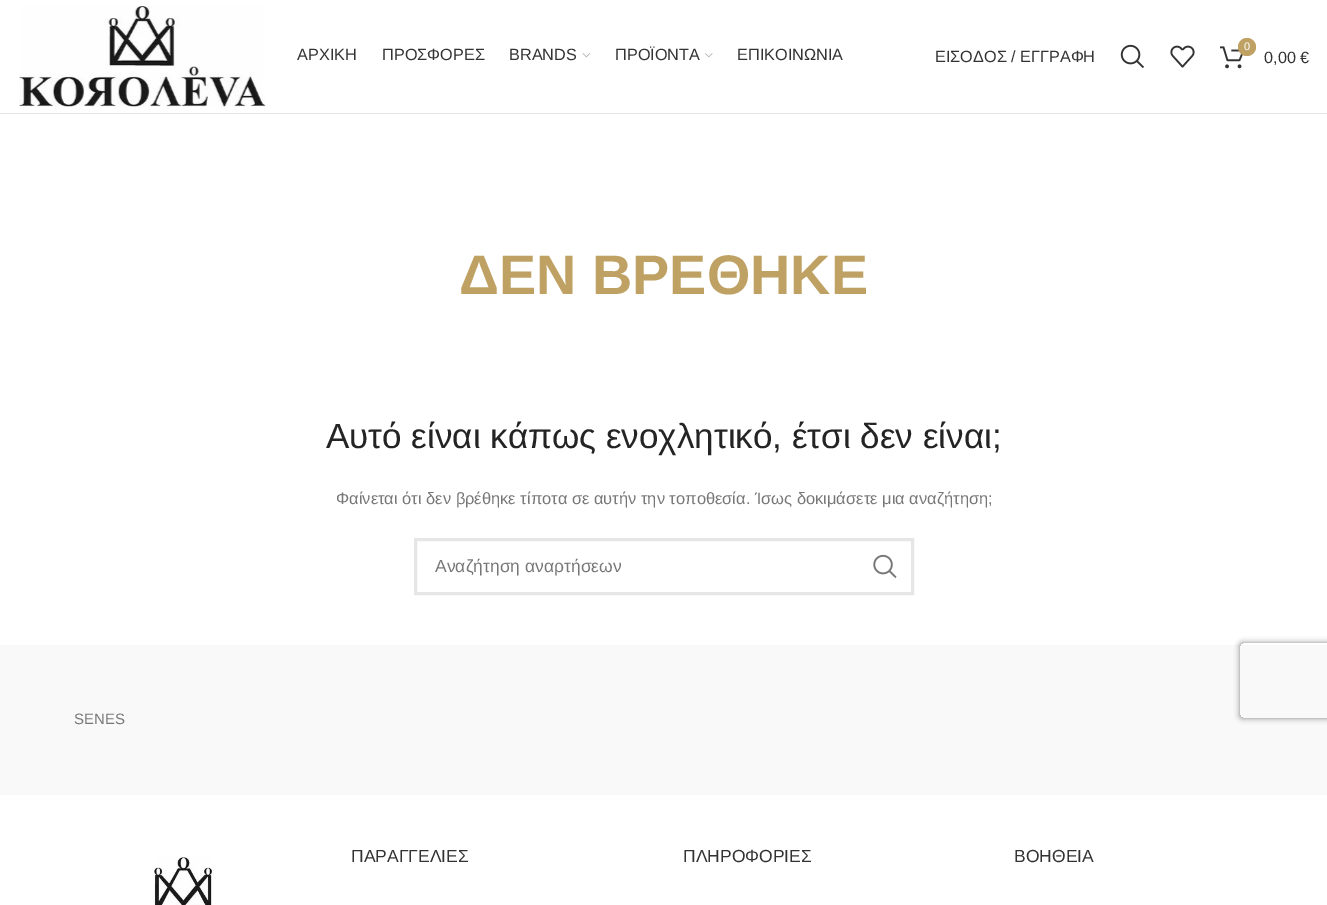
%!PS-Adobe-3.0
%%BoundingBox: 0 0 1327 905
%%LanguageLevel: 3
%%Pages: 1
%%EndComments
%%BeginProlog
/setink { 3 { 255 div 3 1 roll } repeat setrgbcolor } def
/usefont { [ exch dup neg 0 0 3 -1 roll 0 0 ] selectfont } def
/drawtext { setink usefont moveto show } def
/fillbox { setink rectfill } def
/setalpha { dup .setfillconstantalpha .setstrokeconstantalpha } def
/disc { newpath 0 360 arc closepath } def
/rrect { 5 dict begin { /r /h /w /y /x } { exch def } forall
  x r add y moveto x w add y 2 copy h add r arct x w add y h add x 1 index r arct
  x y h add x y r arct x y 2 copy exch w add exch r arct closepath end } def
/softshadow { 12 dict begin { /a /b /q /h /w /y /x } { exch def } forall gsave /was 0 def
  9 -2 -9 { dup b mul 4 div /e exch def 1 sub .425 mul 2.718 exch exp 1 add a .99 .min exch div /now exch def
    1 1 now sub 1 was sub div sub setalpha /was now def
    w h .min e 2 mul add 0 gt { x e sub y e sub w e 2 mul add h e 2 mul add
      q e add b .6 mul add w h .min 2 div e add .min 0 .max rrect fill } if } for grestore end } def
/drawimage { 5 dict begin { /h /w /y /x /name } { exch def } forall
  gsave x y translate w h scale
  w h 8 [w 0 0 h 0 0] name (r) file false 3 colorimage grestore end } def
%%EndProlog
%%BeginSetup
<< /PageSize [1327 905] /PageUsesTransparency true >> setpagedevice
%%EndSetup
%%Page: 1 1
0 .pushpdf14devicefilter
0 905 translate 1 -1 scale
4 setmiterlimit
0 0 1327 905 255 255 255 fillbox
0 113 1327 1 230 230 230 fillbox
(assets/img1.rgb) 18 6 248 101 drawimage
(ΑΡΧΙΚΗ) 297 60 /LiberationSans-Regular 16.25 51 51 51 drawtext
(ΠΡΟΣΦΟΡΕΣ) 382 60 /LiberationSans-Regular 16.25 51 51 51 drawtext
(BRANDS) 509 60 /LiberationSans-Regular 16.25 51 51 51 drawtext
(assets/img2.rgb) 582 53 8 5 drawimage
(ΠΡΟΪΟΝΤΑ) 615 60 /LiberationSans-Regular 16.25 51 51 51 drawtext
(assets/img3.rgb) 705 53 8 5 drawimage
(ΕΠΙΚΟΙΝΩΝΙΑ) 737 60 /LiberationSans-Regular 16.25 51 51 51 drawtext
(ΕΙΣΟΔΟΣ / ΕΓΓΡΑΦΗ) 935 62 /LiberationSans-Regular 16.25 51 51 51 drawtext
(assets/img4.rgb) 1120 44 24 25 drawimage
(assets/img5.rgb) 1170 45 25 23 drawimage
(assets/img6.rgb) 1220 46 23 23 drawimage
190 161 99 setink
1247 47 9 disc fill
(0) 1244 50 /LiberationSans-Regular 11 255 255 255 drawtext
(0,00 €) 1264 63 /LiberationSans-Regular 16.25 51 51 51 drawtext
(ΔΕΝ ΒΡΕΘΗΚΕ) 459 294 /LiberationSans-Bold 55.75 190 161 99 drawtext
(Αυτό είναι κάπως ενοχλητικό, έτσι δεν είναι;) 326 448 /LiberationSans-Regular 35 36 36 36 drawtext
(Φαίνεται ότι δεν βρέθηκε τίποτα σε αυτήν την τοποθεσία. Ίσως δοκιμάσετε μια αναζήτηση;) 336 504 /LiberationSans-Regular 16.5 119 119 119 drawtext
230 230 230 setink
3 setlinewidth
415.5 539.5 497 54 rectstroke
(Αναζήτηση αναρτήσεων) 435 572 /LiberationSans-Regular 17.5 119 119 119 drawtext
(assets/img7.rgb) 873 554 24 25 drawimage
0 645 1327 150 249 249 249 fillbox
(SENES) 74 724 /LiberationSans-Regular 15 119 119 119 drawtext
(assets/img8.rgb) 154 857 60 48 drawimage
(ΠΑΡΑΓΓΕΛΙΕΣ) 351 862 /LiberationSans-Regular 17.5 51 51 51 drawtext
(ΠΛΗΡΟΦΟΡΙΕΣ) 683 862 /LiberationSans-Regular 17.5 51 51 51 drawtext
(ΒΟΗΘΕΙΑ) 1014 862 /LiberationSans-Regular 17.5 51 51 51 drawtext
gsave
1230 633 moveto 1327 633 lineto 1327 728 lineto 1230 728 lineto closepath 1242.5 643 moveto 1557.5 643 lineto 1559 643 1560 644 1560 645.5 curveto 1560 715.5 lineto 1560 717 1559 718 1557.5 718 curveto 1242.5 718 lineto 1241 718 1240 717 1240 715.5 curveto 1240 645.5 lineto 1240 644 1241 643 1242.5 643 curveto closepath eoclip newpath
128 128 128 setink
1240 643 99 75 2.5 3 1 softshadow
grestore
.poppdf14devicefilter showpage
%%EOF
